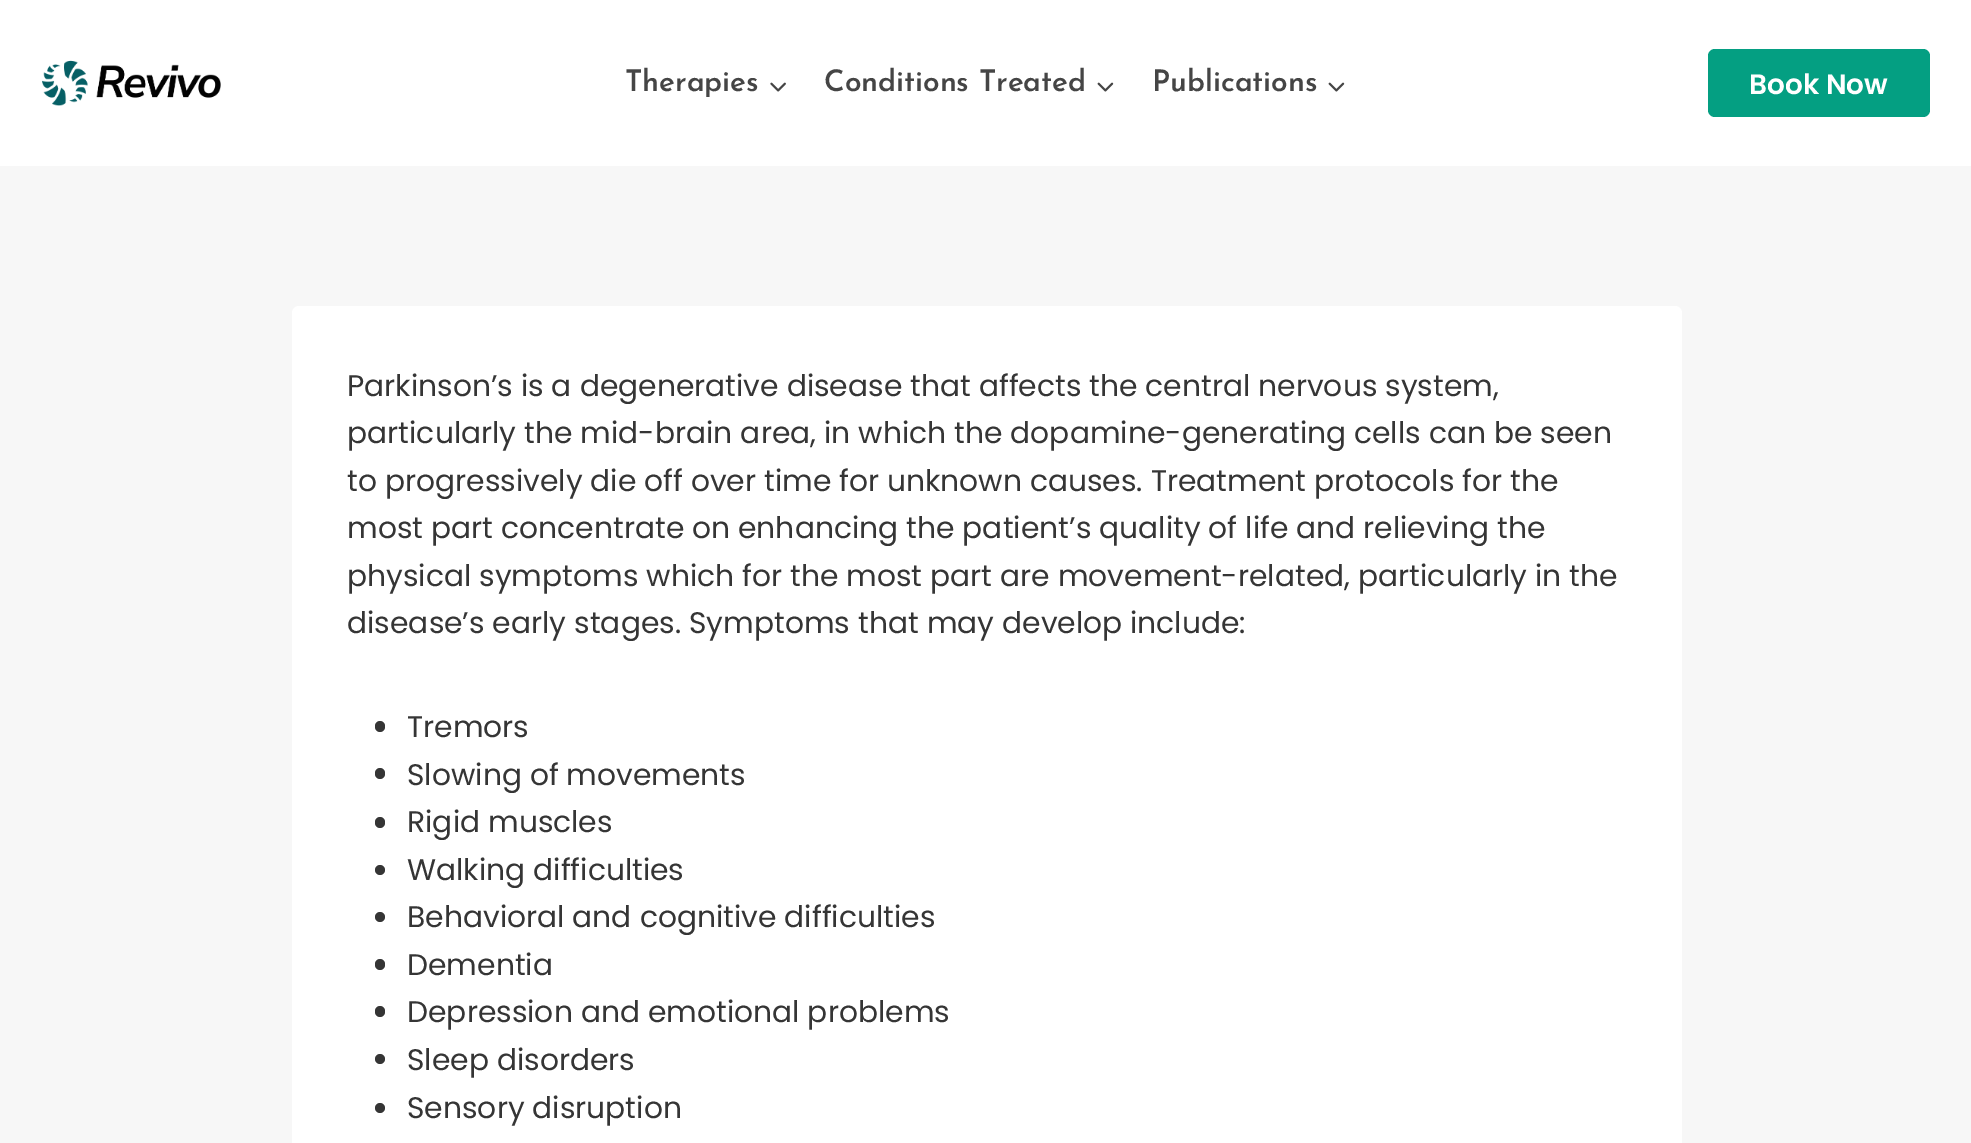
%!PS-Adobe-3.0
%%BoundingBox: 0 0 1971 1143
%%LanguageLevel: 3
%%Pages: 1
%%EndComments
%%BeginProlog
/setink { 3 { 255 div 3 1 roll } repeat setrgbcolor } def
/usefont { [ exch dup neg 0 0 3 -1 roll 0 0 ] selectfont } def
/drawtext { setink usefont moveto show } def
/fillbox { setink rectfill } def
/disc { newpath 0 360 arc closepath } def
/rrect { 5 dict begin { /r /h /w /y /x } { exch def } forall
  x r add y moveto x w add y 2 copy h add r arct x w add y h add x 1 index r arct
  x y h add x y r arct x y 2 copy exch w add exch r arct closepath end } def
/drawimage { 5 dict begin { /h /w /y /x /name } { exch def } forall
  gsave x y translate w h scale
  w h 8 [w 0 0 h 0 0] name (r) file false 3 colorimage grestore end } def
%%EndProlog
%%BeginSetup
<< /PageSize [1971 1143] >> setpagedevice
%%EndSetup
%%Page: 1 1
0 1143 translate 1 -1 scale
4 setmiterlimit
0 0 1971 1143 247 247 247 fillbox
0 0 1971 166 255 255 255 fillbox
(assets/img1.rgb) 42 60 179 46 drawimage
(Therapies) 625 91 /JosefinSans-Thin 29.75 69 69 69 drawtext
(assets/img2.rgb) 770 82 16 10 drawimage
(Conditions Treated) 824 91 /JosefinSans-Thin 29.75 69 69 69 drawtext
(assets/img3.rgb) 1097 82 17 10 drawimage
(Publications) 1152 91 /JosefinSans-Thin 29.75 69 69 69 drawtext
(assets/img3.rgb) 1328 82 17 10 drawimage
4 159 130 setink
1708 49 222 68 7 rrect fill
(Book Now) 1749 94 /Poppins-SemiBold 28 255 255 255 drawtext
292 306 1390 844 7 rrect fill
(Parkinson’s is a degenerative disease that affects the central nervous system,) 347 396 /Poppins-Regular 29.75 53 53 53 drawtext
(particularly the mid-brain area, in which the dopamine-generating cells can be seen) 347 443 /Poppins-Regular 29.75 53 53 53 drawtext
(to progressively die off over time for unknown causes. Treatment protocols for the) 347 491 /Poppins-Regular 29.75 53 53 53 drawtext
(most part concentrate on enhancing the patient’s quality of life and relieving the) 347 538 /Poppins-Regular 29.75 53 53 53 drawtext
(physical symptoms which for the most part are movement-related, particularly in the) 347 586 /Poppins-Regular 29.75 53 53 53 drawtext
(disease’s early stages. Symptoms that may develop include:) 347 633 /Poppins-Regular 29.75 53 53 53 drawtext
375 721 10 11 5 rrect fill
(Tremors) 407 737 /Poppins-Regular 29.75 53 53 53 drawtext
375 768 10 11 5 rrect fill
(Slowing of movements) 407 785 /Poppins-Regular 29.75 53 53 53 drawtext
375 817 10 11 5 rrect fill
(Rigid muscles) 407 832 /Poppins-Regular 29.75 53 53 53 drawtext
380 870 5 disc fill
(Walking difficulties) 407 880 /Poppins-Regular 29.75 53 53 53 drawtext
380 917 5 disc fill
(Behavioral and cognitive difficulties) 407 927 /Poppins-Regular 29.75 53 53 53 drawtext
375 959 10 11 5 rrect fill
(Dementia) 407 975 /Poppins-Regular 29.75 53 53 53 drawtext
375 1006 10 11 5 rrect fill
(Depression and emotional problems) 407 1022 /Poppins-Regular 29.75 53 53 53 drawtext
380 1059 5 disc fill
(Sleep disorders) 407 1070 /Poppins-Regular 29.75 53 53 53 drawtext
380 1108 5 disc fill
(Sensory disruption) 407 1118 /Poppins-Regular 29.75 53 53 53 drawtext
showpage
%%EOF
